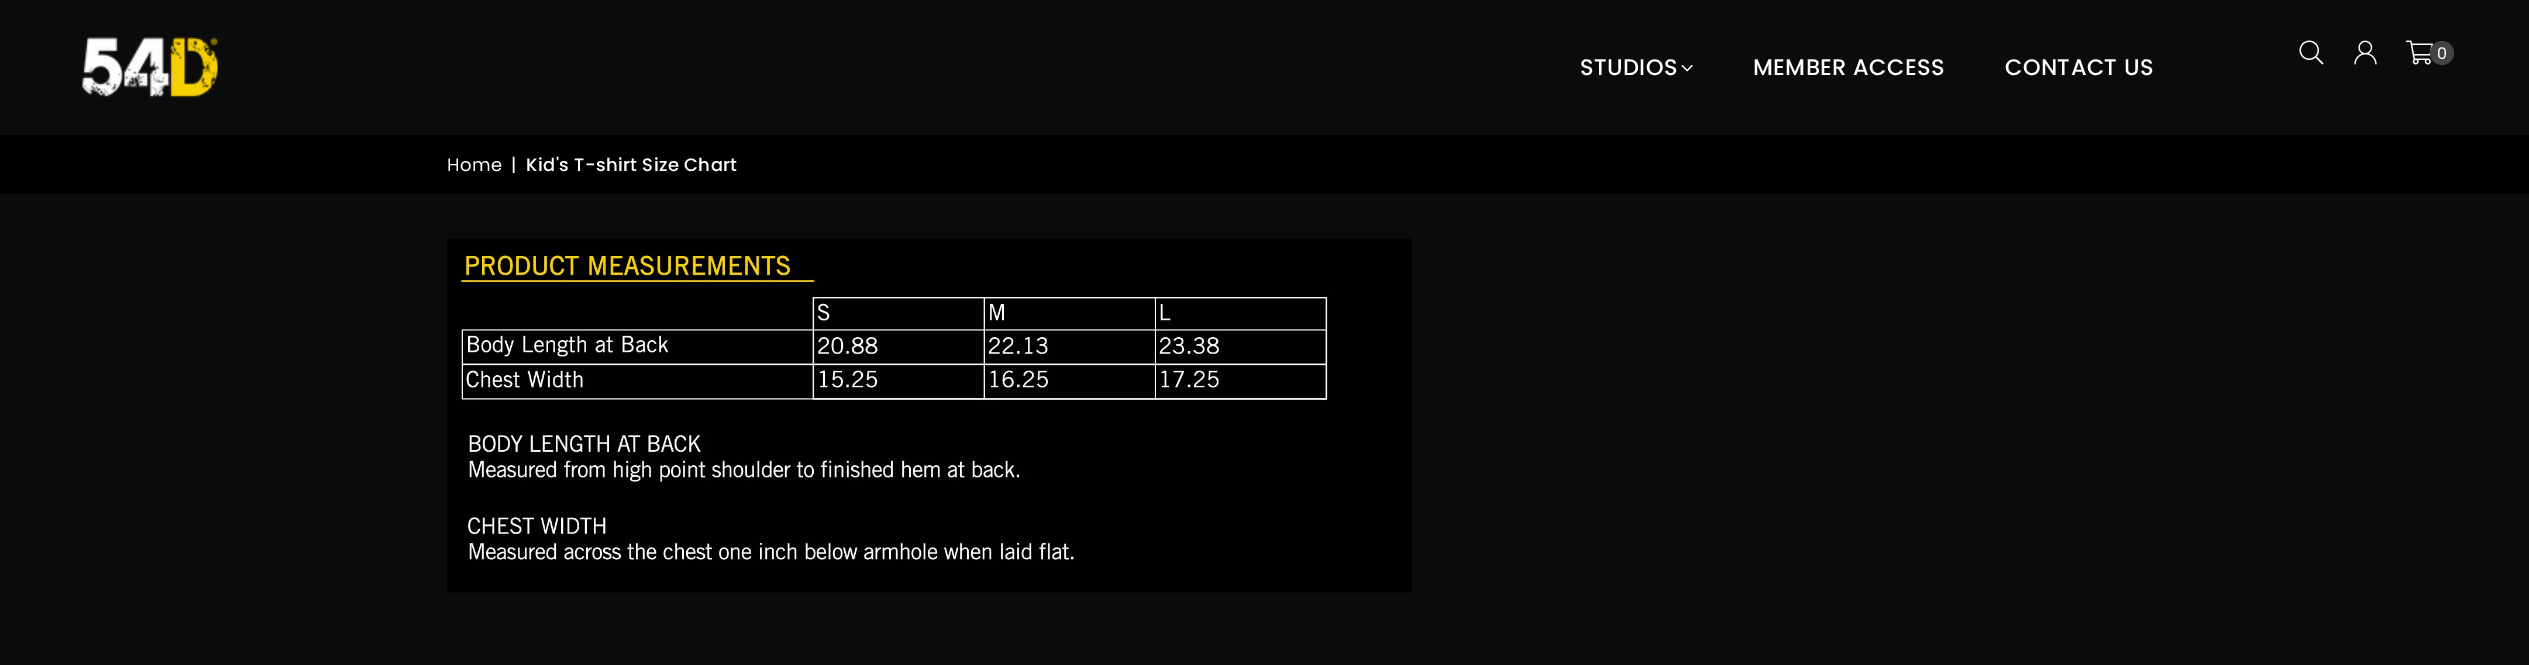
%!PS-Adobe-3.0
%%BoundingBox: 0 0 2529 665
%%LanguageLevel: 3
%%Pages: 1
%%EndComments
%%BeginProlog
/setink { 3 { 255 div 3 1 roll } repeat setrgbcolor } def
/usefont { [ exch dup neg 0 0 3 -1 roll 0 0 ] selectfont } def
/fillbox { setink rectfill } def
/disc { newpath 0 360 arc closepath } def
/drawimage { 5 dict begin { /h /w /y /x /name } { exch def } forall
  gsave x y translate w h scale
  w h 8 [w 0 0 h 0 0] name (r) file false 3 colorimage grestore end } def
%%EndProlog
%%BeginSetup
<< /PageSize [2529 665] >> setpagedevice
%%EndSetup
%%Page: 1 1
0 665 translate 1 -1 scale
4 setmiterlimit
0 0 2529 665 11 11 11 fillbox
(assets/img1.rgb) 82 37 136 61 drawimage
(assets/img2.rgb) 2299 40 25 25 drawimage
(assets/img3.rgb) 2354 40 23 25 drawimage
(assets/img4.rgb) 2406 40 27 25 drawimage
68 68 68 setink
2442 53 12 disc fill
/Poppins-Regular 16 usefont
255 255 255 setink
2437 59 moveto 0.4 0 (0) ashow
/Poppins-Medium 22.5 usefont
1580 75 moveto 0.4 0 (STUDIOS) ashow
(assets/img5.rgb) 1681 64 12 8 drawimage
1753 75 moveto 0.4 0 (MEMBER ACCESS) ashow
2005 75 moveto 0.4 0 (CONTACT US) ashow
0 135 2529 59 0 0 0 fillbox
/Poppins-Regular 18 usefont
255 255 255 setink
447 171 moveto 0.4 0 (Home) ashow
511 171 moveto 0.4 0 (|) ashow
/Poppins-Medium 18 usefont
526 171 moveto 0.4 0 (Kid's T-shirt Size Chart) ashow
(assets/img6.rgb) 447 238 965 355 drawimage
showpage
%%EOF
